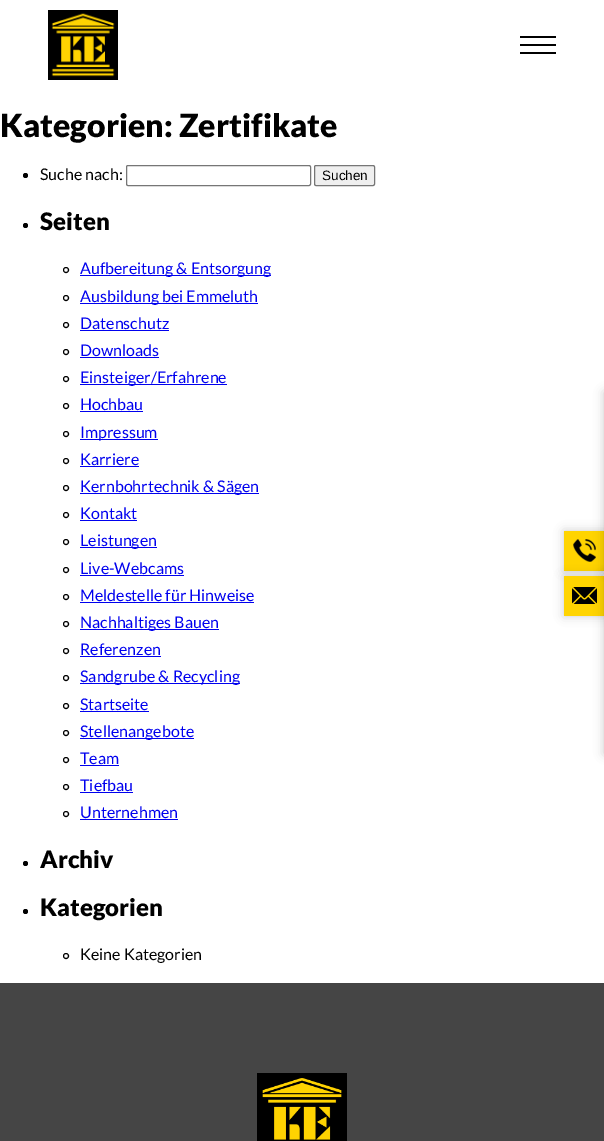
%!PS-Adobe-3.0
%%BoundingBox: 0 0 604 1141
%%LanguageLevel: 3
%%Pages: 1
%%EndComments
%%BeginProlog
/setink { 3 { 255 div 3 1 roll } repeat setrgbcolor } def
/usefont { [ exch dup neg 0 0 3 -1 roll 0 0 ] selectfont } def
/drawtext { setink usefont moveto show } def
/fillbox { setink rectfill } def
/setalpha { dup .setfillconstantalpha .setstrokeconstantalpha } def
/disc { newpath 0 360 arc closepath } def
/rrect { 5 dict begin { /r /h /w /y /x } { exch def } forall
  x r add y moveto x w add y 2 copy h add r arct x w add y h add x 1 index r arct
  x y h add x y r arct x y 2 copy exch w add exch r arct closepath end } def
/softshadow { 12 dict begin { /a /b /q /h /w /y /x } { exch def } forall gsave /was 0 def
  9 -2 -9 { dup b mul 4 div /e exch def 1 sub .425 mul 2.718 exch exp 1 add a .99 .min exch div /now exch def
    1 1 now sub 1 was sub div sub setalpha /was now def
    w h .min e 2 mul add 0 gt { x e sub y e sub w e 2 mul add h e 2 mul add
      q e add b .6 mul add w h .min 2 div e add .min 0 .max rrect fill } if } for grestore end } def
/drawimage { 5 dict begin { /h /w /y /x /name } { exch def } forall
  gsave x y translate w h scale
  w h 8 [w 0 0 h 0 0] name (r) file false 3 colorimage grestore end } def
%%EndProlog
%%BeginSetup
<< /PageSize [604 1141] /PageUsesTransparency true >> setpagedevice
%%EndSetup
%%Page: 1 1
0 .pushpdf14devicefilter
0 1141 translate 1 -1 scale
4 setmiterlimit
0 0 604 1141 255 255 255 fillbox
(assets/img1.rgb) 48 10 70 70 drawimage
520 36 36 2 0 0 0 fillbox
520 44 36 2 0 0 0 fillbox
520 52 36 2 0 0 0 fillbox
(Kategorien: Zertifikate) 0 137 /Lato-Black 32 0 0 0 drawtext
25.5 175.5 2.5 disc fill
(Suche nach:) 40 180 /Lato-Regular 16 0 0 0 drawtext
118 118 118 setink
126.5 165.5 184 20 1.5 rrect stroke
239 239 239 setink
314.5 165.5 60 20 1.5 rrect gsave fill grestore
118 118 118 setink
stroke
(Suchen) 322 180 /LiberationSans-Regular 13.5 0 0 0 drawtext
25.5 225.5 2.5 disc fill
(Seiten) 40 230 /Lato-Black 24 0 0 0 drawtext
66 270 2.5 disc stroke
80 275 191 1 0 0 238 fillbox
(Aufbereitung & Entsorgung) 80 274 /Lato-Regular 16 0 0 238 drawtext
0 0 0 setink
66 298 2.5 disc stroke
80 303 178 1 0 0 238 fillbox
(Ausbildung bei Emmeluth) 80 302 /Lato-Regular 16 0 0 238 drawtext
0 0 0 setink
66 325 2.5 disc stroke
(Datenschutz) 80 329 /Lato-Regular 16 0 0 238 drawtext
80 330 89 1 0 0 238 fillbox
0 0 0 setink
66 352 2.5 disc stroke
(Downloads) 80 356 /Lato-Regular 16 0 0 238 drawtext
80 357 79 1 0 0 238 fillbox
0 0 0 setink
66 379 2.5 disc stroke
80 384 147 1 0 0 238 fillbox
(Einsteiger/Erfahrene) 80 383 /Lato-Regular 16 0 0 238 drawtext
0 0 0 setink
66 406 2.5 disc stroke
(Hochbau) 80 410 /Lato-Regular 16 0 0 238 drawtext
80 411 63 1 0 0 238 fillbox
0 0 0 setink
66 434 2.5 disc stroke
80 439 78 1 0 0 238 fillbox
(Impressum) 80 438 /Lato-Regular 16 0 0 238 drawtext
0 0 0 setink
66 461 2.5 disc stroke
(Karriere) 80 465 /Lato-Regular 16 0 0 238 drawtext
80 466 59 1 0 0 238 fillbox
0 0 0 setink
66 488 2.5 disc stroke
80 493 179 1 0 0 238 fillbox
(Kernbohrtechnik & Sägen) 80 492 /Lato-Regular 16 0 0 238 drawtext
0 0 0 setink
66 515 2.5 disc stroke
(Kontakt) 80 519 /Lato-Regular 16 0 0 238 drawtext
80 520 57 1 0 0 238 fillbox
0 0 0 setink
66 542 2.5 disc stroke
80 547 77 1 0 0 238 fillbox
(Leistungen) 80 546 /Lato-Regular 16 0 0 238 drawtext
0 0 0 setink
66 570 2.5 disc stroke
(Live-Webcams) 80 574 /Lato-Regular 16 0 0 238 drawtext
80 575 104 1 0 0 238 fillbox
0 0 0 setink
66 597 2.5 disc stroke
(Meldestelle für Hinweise) 80 601 /Lato-Regular 16 0 0 238 drawtext
80 602 174 1 0 0 238 fillbox
0 0 0 setink
66 624 2.5 disc stroke
80 629 139 1 0 0 238 fillbox
(Nachhaltiges Bauen) 80 628 /Lato-Regular 16 0 0 238 drawtext
0 0 0 setink
66 651 2.5 disc stroke
(Referenzen) 80 655 /Lato-Regular 16 0 0 238 drawtext
80 656 81 1 0 0 238 fillbox
0 0 0 setink
66 678 2.5 disc stroke
80 683 160 1 0 0 238 fillbox
(Sandgrube & Recycling) 80 682 /Lato-Regular 16 0 0 238 drawtext
0 0 0 setink
66 706 2.5 disc stroke
(Startseite) 80 710 /Lato-Regular 16 0 0 238 drawtext
80 711 69 1 0 0 238 fillbox
0 0 0 setink
66 733 2.5 disc stroke
80 738 114 1 0 0 238 fillbox
(Stellenangebote) 80 737 /Lato-Regular 16 0 0 238 drawtext
0 0 0 setink
66 760 2.5 disc stroke
(Team) 80 764 /Lato-Regular 16 0 0 238 drawtext
80 765 39 1 0 0 238 fillbox
0 0 0 setink
66 787 2.5 disc stroke
(Tiefbau) 80 791 /Lato-Regular 16 0 0 238 drawtext
80 792 53 1 0 0 238 fillbox
0 0 0 setink
66 814 2.5 disc stroke
(Unternehmen) 80 818 /Lato-Regular 16 0 0 238 drawtext
80 819 98 1 0 0 238 fillbox
0 0 0 setink
25.5 863.5 2.5 disc fill
(Archiv) 40 868 /Lato-Black 24 0 0 0 drawtext
25.5 911.5 2.5 disc fill
(Kategorien) 40 916 /Lato-Black 24 0 0 0 drawtext
66 956 2.5 disc stroke
(Keine Kategorien) 80 960 /Lato-Regular 16 0 0 0 drawtext
564 531 40 40 0 5 0.21 softshadow
564 531 40 40 255 212 0 fillbox
(assets/img2.rgb) 573 539 23 23 drawimage
0 0 0 setink
564 576 40 40 0 5 0.21 softshadow
564 576 40 40 255 212 0 fillbox
0 0 0 setink
604 392 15 179 0 5 0.21 softshadow
(assets/img3.rgb) 572 587 25 17 drawimage
604 576 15 178 0 5 0.21 softshadow
0 983 604 158 69 69 69 fillbox
(assets/img4.rgb) 257 1073 90 68 drawimage
.poppdf14devicefilter showpage
%%EOF
